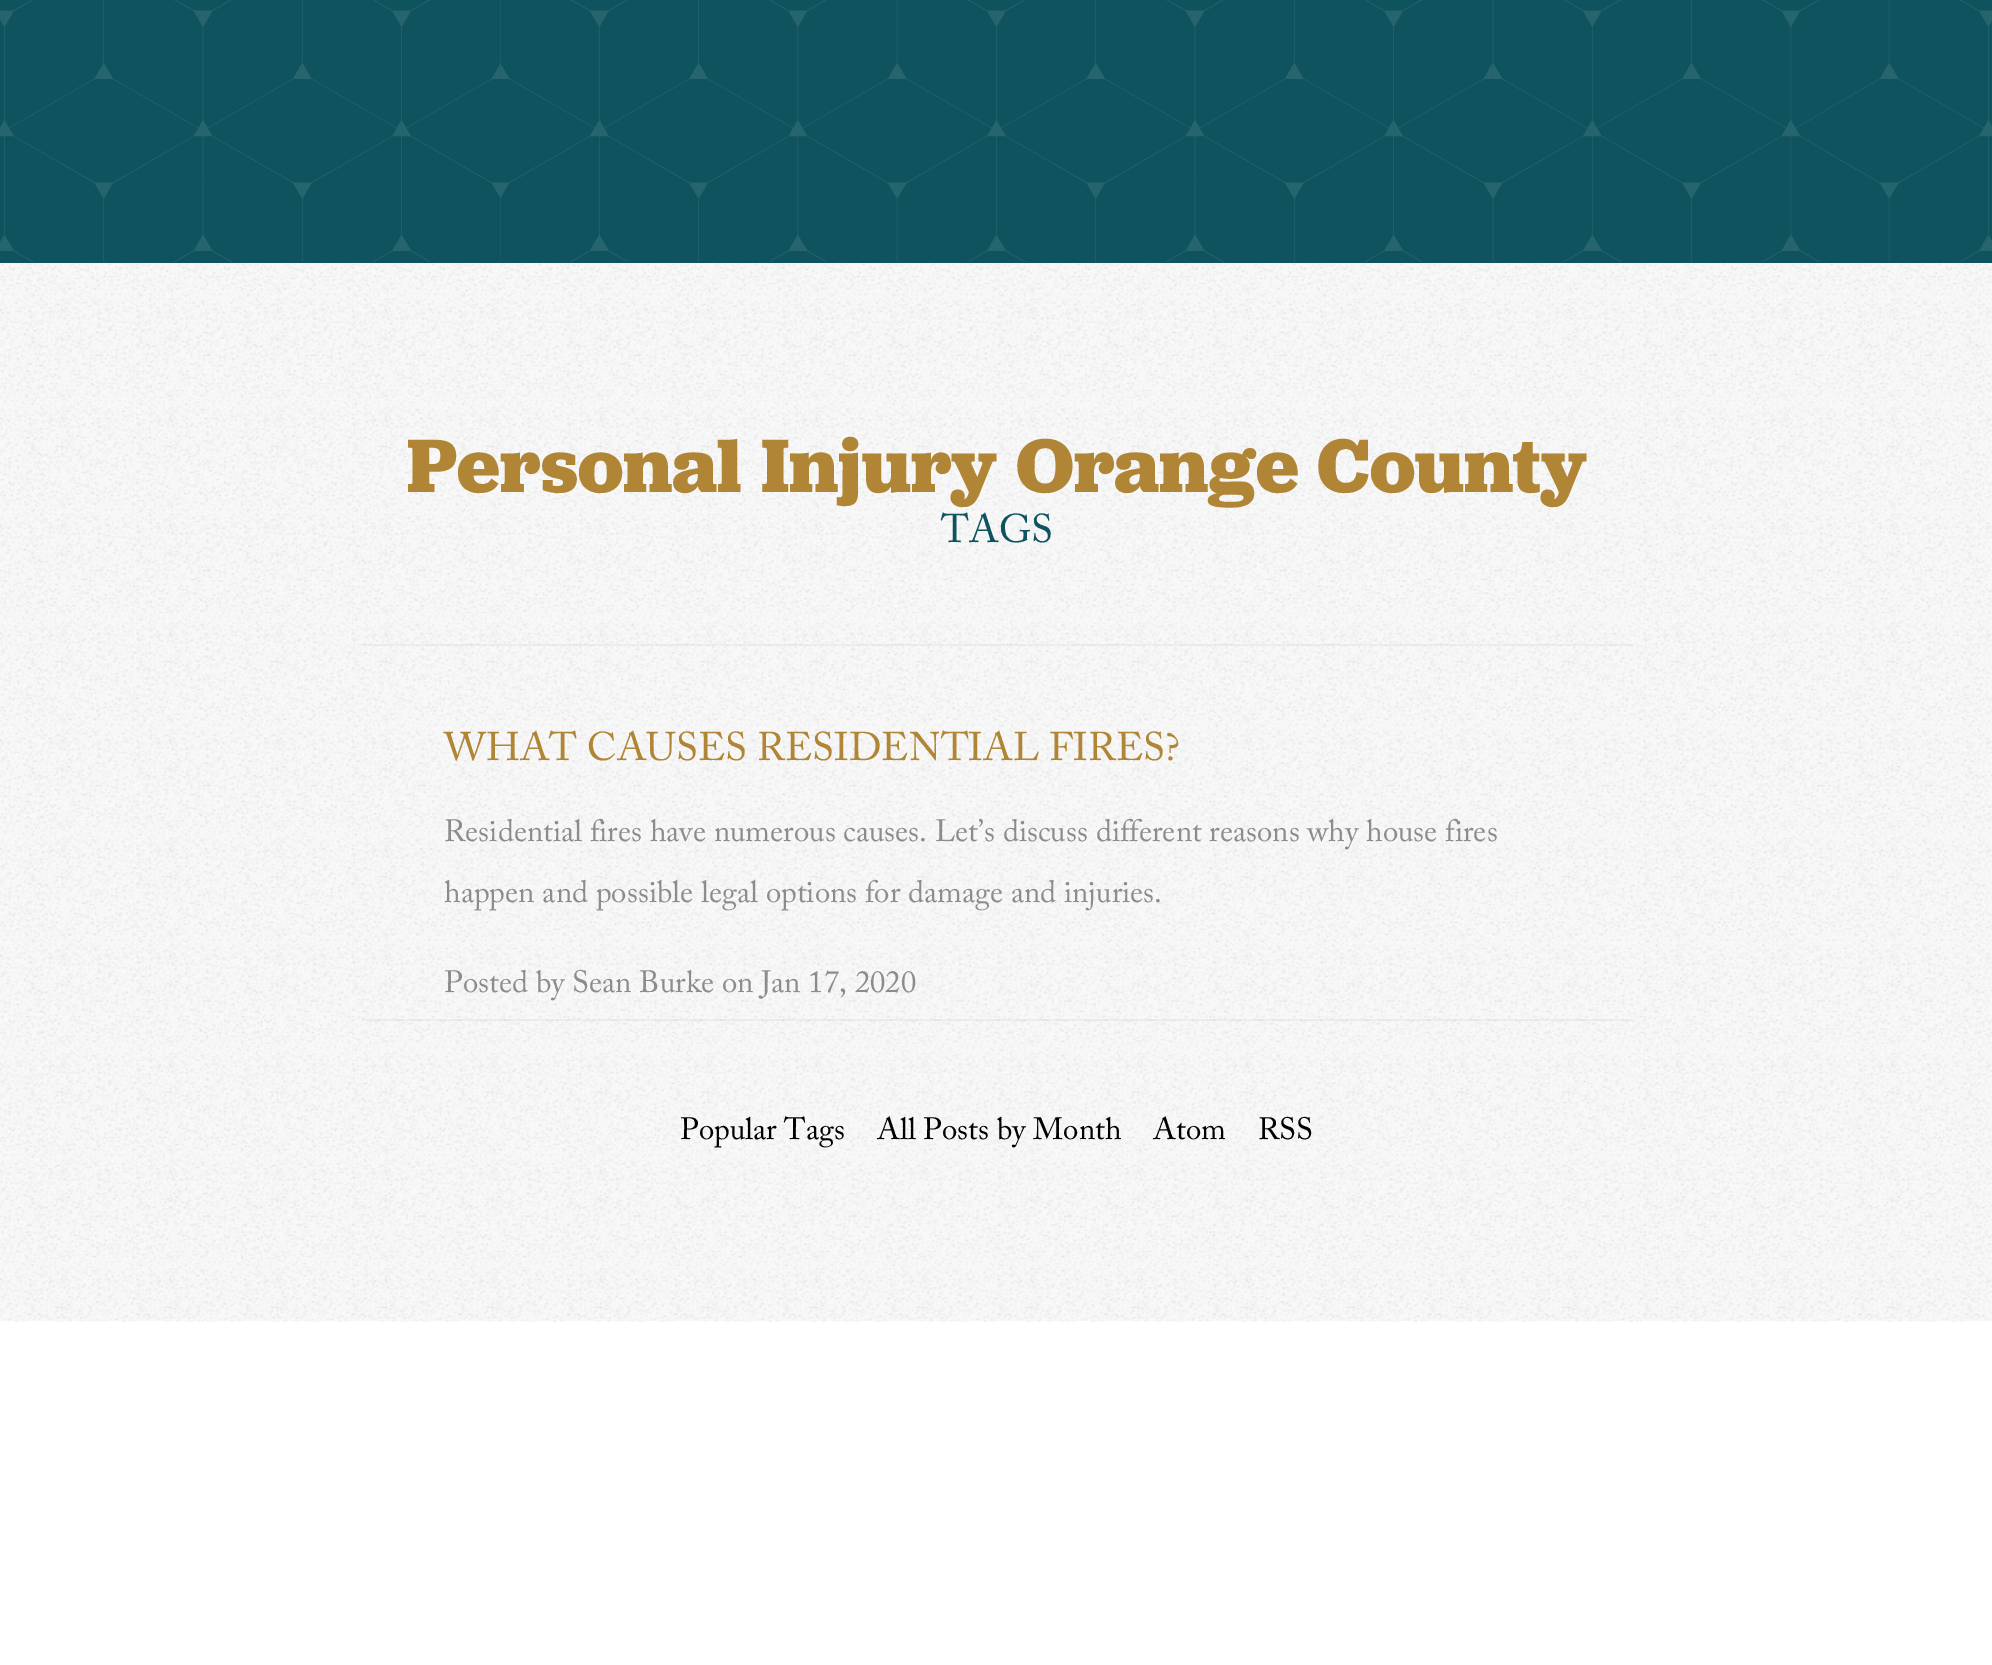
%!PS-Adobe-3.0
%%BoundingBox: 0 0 1992 1665
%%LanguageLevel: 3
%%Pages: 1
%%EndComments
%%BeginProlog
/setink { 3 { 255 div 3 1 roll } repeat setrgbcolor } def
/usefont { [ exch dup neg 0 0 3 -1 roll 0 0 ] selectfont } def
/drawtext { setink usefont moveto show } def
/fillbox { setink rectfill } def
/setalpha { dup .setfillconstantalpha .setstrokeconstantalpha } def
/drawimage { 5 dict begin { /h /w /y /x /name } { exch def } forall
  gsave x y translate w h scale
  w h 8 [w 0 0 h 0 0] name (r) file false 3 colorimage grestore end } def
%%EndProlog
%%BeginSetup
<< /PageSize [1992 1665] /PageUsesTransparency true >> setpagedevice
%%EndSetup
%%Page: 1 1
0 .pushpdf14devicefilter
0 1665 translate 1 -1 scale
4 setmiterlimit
0 0 1992 1665 255 255 255 fillbox
0 263 1992 1058 248 248 248 fillbox
(assets/img1.rgb) 0 263 1992 1059 drawimage
0 0 1992 263 14 83 94 fillbox
(assets/img2.rgb) 0 0 1992 262 drawimage
(Personal Injury Orange County) 407 492 /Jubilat-Bold 78.75 176 133 53 drawtext
(TAGS) 941 542 /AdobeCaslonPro-Regular 39.8 14 83 94 drawtext
0.1 setalpha
361 644 1272 2 140 140 140 fillbox
361 1019 1272 2 140 140 140 fillbox
1 setalpha
(WHAT CAUSES RESIDENTIAL FIRES?) 444 760 /AdobeCaslonPro-Regular 39.8 176 133 53 drawtext
(Residential fires have numerous causes. Let’s discuss different reasons why house fires) 444 841 /AdobeCaslonPro-Regular 30.7 140 140 140 drawtext
(happen and possible legal options for damage and injuries.) 444 902 /AdobeCaslonPro-Regular 30.7 140 140 140 drawtext
(Posted by Sean Burke on Jan 17, 2020) 444 992 /AdobeCaslonPro-Regular 30.7 140 140 140 drawtext
(Popular Tags) 680 1139 /AdobeCaslonPro-Regular 30.7 0 0 0 drawtext
(All Posts by Month) 877 1139 /AdobeCaslonPro-Regular 30.7 0 0 0 drawtext
(Atom) 1153 1139 /AdobeCaslonPro-Regular 30.7 0 0 0 drawtext
(RSS) 1258 1139 /AdobeCaslonPro-Regular 30.7 0 0 0 drawtext
.poppdf14devicefilter showpage
%%EOF
